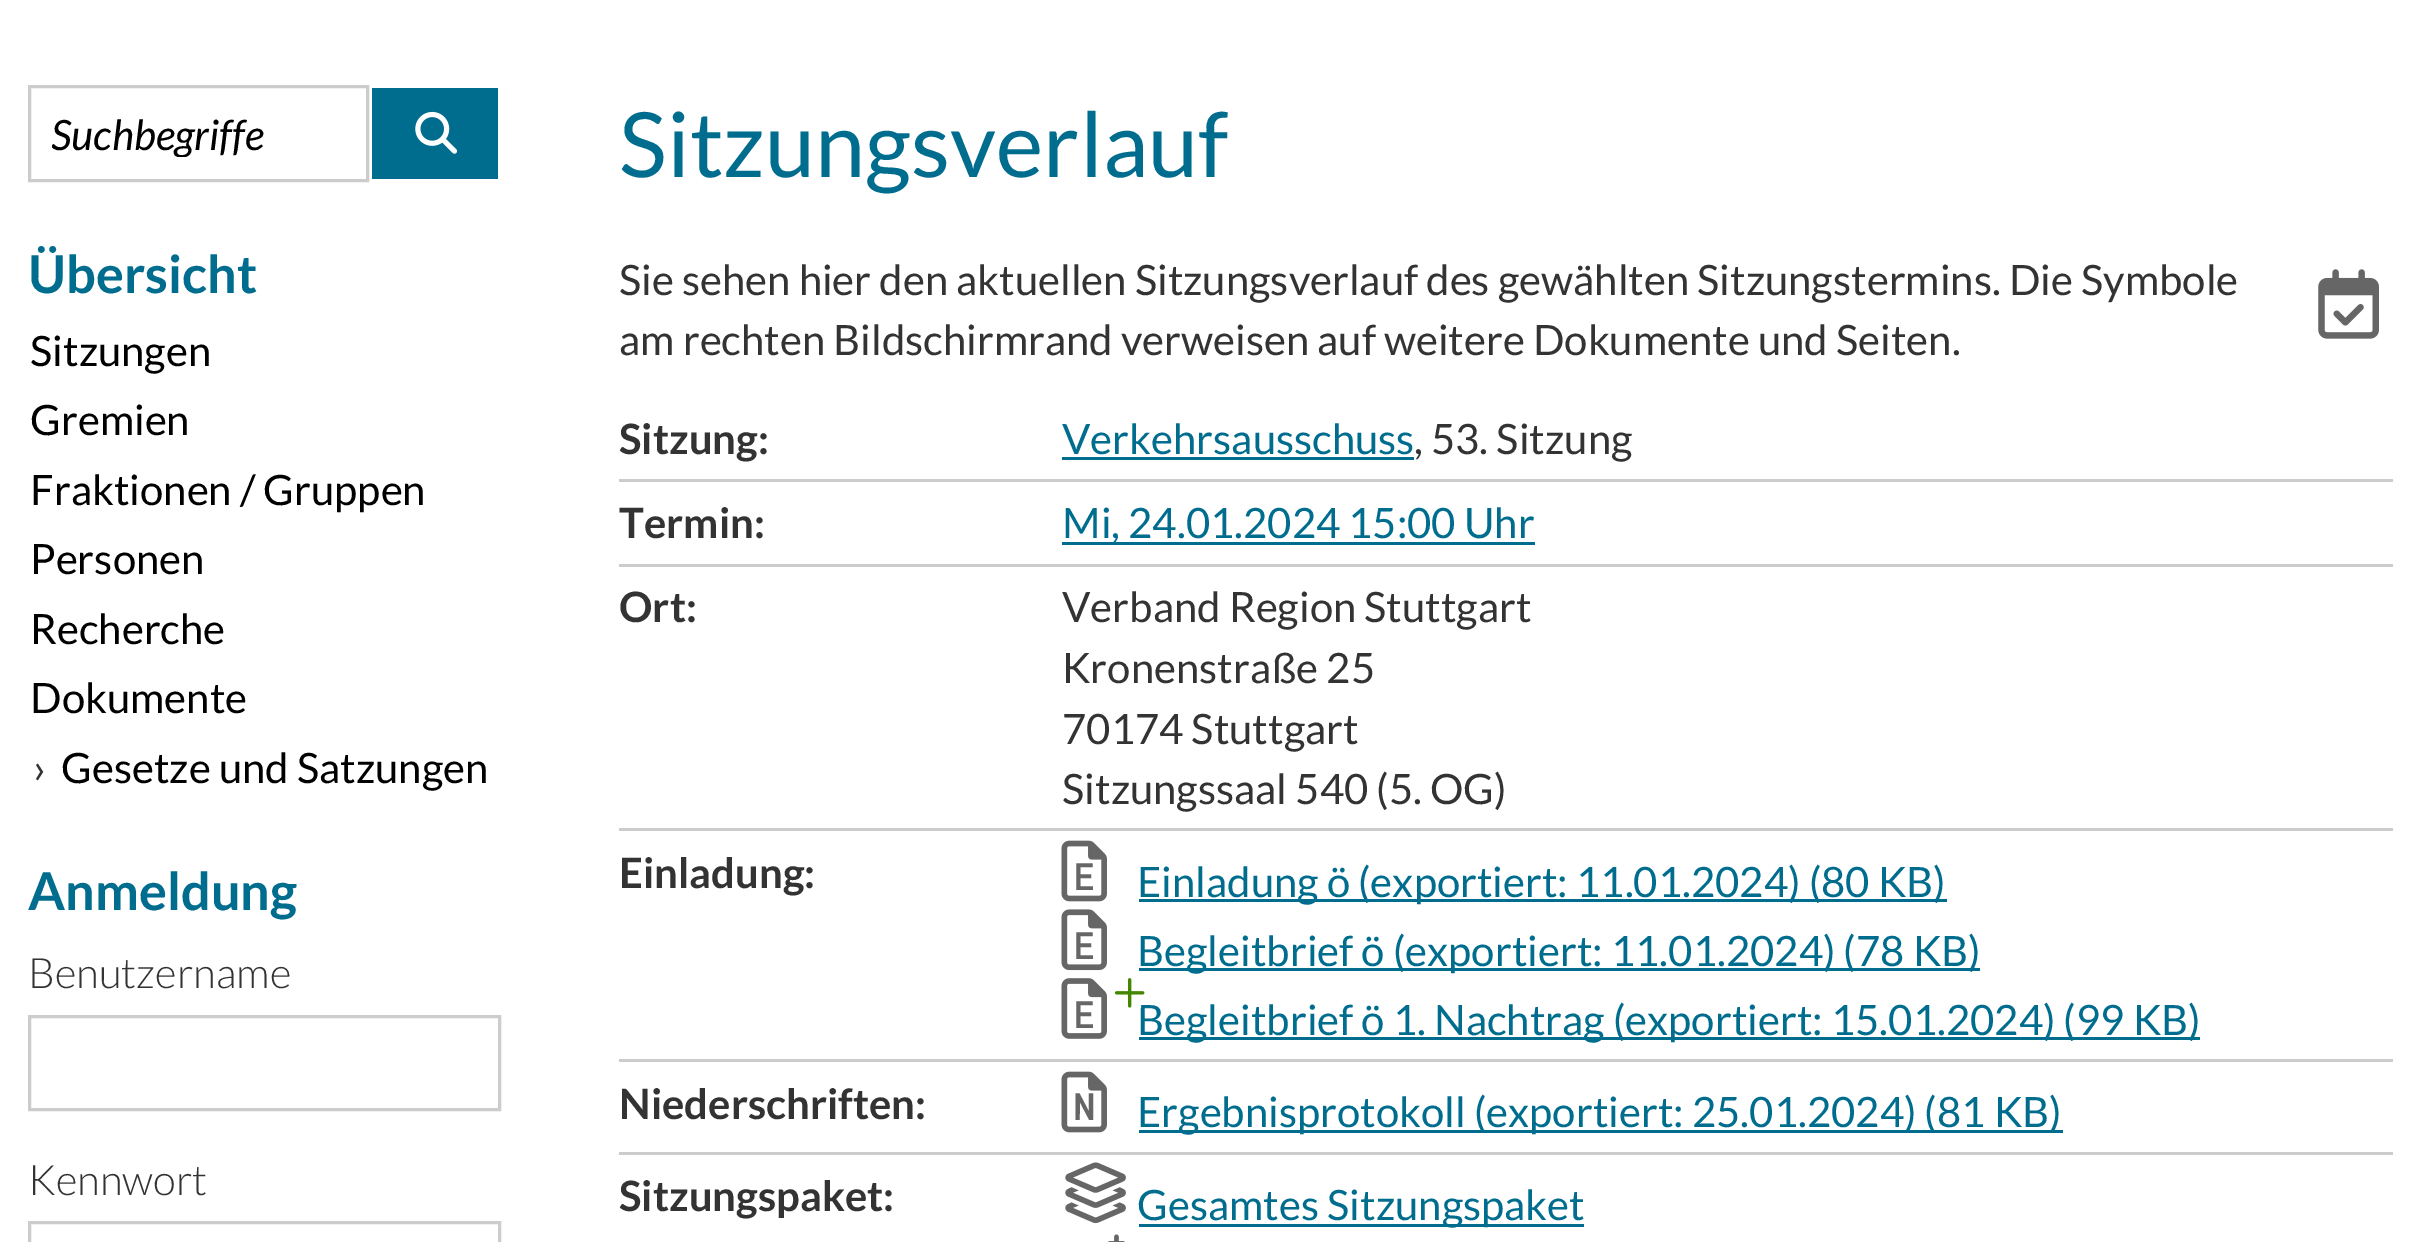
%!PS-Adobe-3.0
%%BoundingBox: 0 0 2418 1242
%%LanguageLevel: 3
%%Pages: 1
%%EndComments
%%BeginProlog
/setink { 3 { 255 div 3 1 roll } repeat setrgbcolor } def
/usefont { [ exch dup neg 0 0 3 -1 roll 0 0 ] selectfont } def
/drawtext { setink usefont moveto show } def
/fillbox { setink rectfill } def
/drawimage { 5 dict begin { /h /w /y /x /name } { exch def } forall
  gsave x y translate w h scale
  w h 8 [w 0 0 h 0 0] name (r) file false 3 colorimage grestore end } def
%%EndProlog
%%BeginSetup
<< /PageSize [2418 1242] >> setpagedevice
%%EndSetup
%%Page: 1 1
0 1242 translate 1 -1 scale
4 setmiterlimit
0 0 2418 1242 255 255 255 fillbox
204 204 204 setink
3 setlinewidth
29.5 86.5 338 94 rectstroke
gsave
52 107 295 50 rectclip
(Suchbegriffe) 51 150 /Lato-Italic 41.85 0 0 0 drawtext
grestore
372 88 126 91 0 109 143 fillbox
(assets/img1.rgb) 415 111 43 43 drawimage
(Übersicht) 28 293 /Lato-Bold 52.25 0 109 143 drawtext
(Sitzungen) 30 366 /Lato-Regular 41.85 0 0 0 drawtext
(Gremien) 30 435 /Lato-Regular 41.85 0 0 0 drawtext
(Fraktionen / Gruppen) 30 505 /Lato-Regular 41.85 0 0 0 drawtext
(Personen) 30 574 /Lato-Regular 41.85 0 0 0 drawtext
(Recherche) 30 644 /Lato-Regular 41.85 0 0 0 drawtext
(Dokumente) 30 713 /Lato-Regular 41.85 0 0 0 drawtext
(›) 33 783 /Lato-Regular 41.85 51 51 51 drawtext
(Gesetze und Satzungen) 61 783 /Lato-Regular 41.85 0 0 0 drawtext
(Anmeldung) 28 910 /Lato-Bold 52.25 0 109 143 drawtext
(Benutzername) 28 988 /Lato-Light 41.85 51 51 51 drawtext
204 204 204 setink
29.5 1016.5 470 93 rectstroke
(Kennwort) 28 1195 /Lato-Light 41.85 51 51 51 drawtext
204 204 204 setink
29.5 1222.5 470 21 rectstroke
(Sitzungsverlauf) 619 177 /Lato-Regular 90 0 109 143 drawtext
(Sie sehen hier den aktuellen Sitzungsverlauf des gewählten Sitzungstermins. Die Symbole) 619 295 /Lato-Regular 41.85 51 51 51 drawtext
(am rechten Bildschirmrand verweisen auf weitere Dokumente und Seiten.) 619 355 /Lato-Regular 41.85 51 51 51 drawtext
(assets/img2.rgb) 2318 269 61 70 drawimage
(Sitzung:) 619 454 /Lato-Bold 41.85 51 51 51 drawtext
619 479 1774 3 204 204 204 fillbox
(Verkehrsausschuss) 1062 454 /Lato-Regular 41.85 0 109 143 drawtext
1062 457 352 3 0 109 143 fillbox
(, 53. Sitzung) 1414 454 /Lato-Regular 41.85 51 51 51 drawtext
(Termin:) 619 538 /Lato-Bold 41.85 51 51 51 drawtext
619 564 1774 3 204 204 204 fillbox
1062 542 473 3 0 109 143 fillbox
(Mi, 24.01.2024 15:00 Uhr) 1062 538 /Lato-Regular 41.85 0 109 143 drawtext
(Ort:) 619 622 /Lato-Bold 41.85 51 51 51 drawtext
619 828 1774 3 204 204 204 fillbox
(Verband Region Stuttgart) 1062 622 /Lato-Regular 41.85 51 51 51 drawtext
(Kronenstraße 25) 1062 683 /Lato-Regular 41.85 51 51 51 drawtext
(70174 Stuttgart) 1062 744 /Lato-Regular 41.85 51 51 51 drawtext
(Sitzungssaal 540 \(5. OG\)) 1062 804 /Lato-Regular 41.85 51 51 51 drawtext
(Einladung:) 619 888 /Lato-Bold 41.85 51 51 51 drawtext
619 1059 1774 3 204 204 204 fillbox
(assets/img3.rgb) 1061 840 46 62 drawimage
(E) 1073 890 /RobotoMono-Bold 36 102 102 102 drawtext
1139 899 808 3 0 109 143 fillbox
(Einladung ö \(exportiert: 11.01.2024\) \(80 KB\)) 1137 897 /Lato-Regular 41.85 0 109 143 drawtext
(assets/img4.rgb) 1061 909 46 62 drawimage
(E) 1073 959 /RobotoMono-Bold 36 102 102 102 drawtext
1139 968 841 3 0 109 143 fillbox
(Begleitbrief ö \(exportiert: 11.01.2024\) \(78 KB\)) 1137 966 /Lato-Regular 41.85 0 109 143 drawtext
(assets/img5.rgb) 1061 978 46 61 drawimage
1139 1037 1061 3 0 109 143 fillbox
(Begleitbrief ö 1. Nachtrag \(exportiert: 15.01.2024\) \(99 KB\)) 1137 1035 /Lato-Regular 41.85 0 109 143 drawtext
(assets/img6.rgb) 1114 978 31 30 drawimage
(E) 1073 1028 /RobotoMono-Bold 36 102 102 102 drawtext
(Niederschriften:) 619 1119 /Lato-Bold 41.85 51 51 51 drawtext
619 1152 1774 3 204 204 204 fillbox
(assets/img3.rgb) 1061 1071 46 62 drawimage
(N) 1073 1120 /RobotoMono-Bold 36 102 102 102 drawtext
1139 1130 924 3 0 109 143 fillbox
(Ergebnisprotokoll \(exportiert: 25.01.2024\) \(81 KB\)) 1137 1127 /Lato-Regular 41.85 0 109 143 drawtext
(Sitzungspaket:) 619 1211 /Lato-Bold 41.85 51 51 51 drawtext
(assets/img7.rgb) 1065 1162 61 62 drawimage
1139 1224 445 3 0 109 143 fillbox
(Gesamtes Sitzungspaket) 1137 1220 /Lato-Regular 41.85 0 109 143 drawtext
(assets/img8.rgb) 1108 1234 17 8 drawimage
showpage
%%EOF
